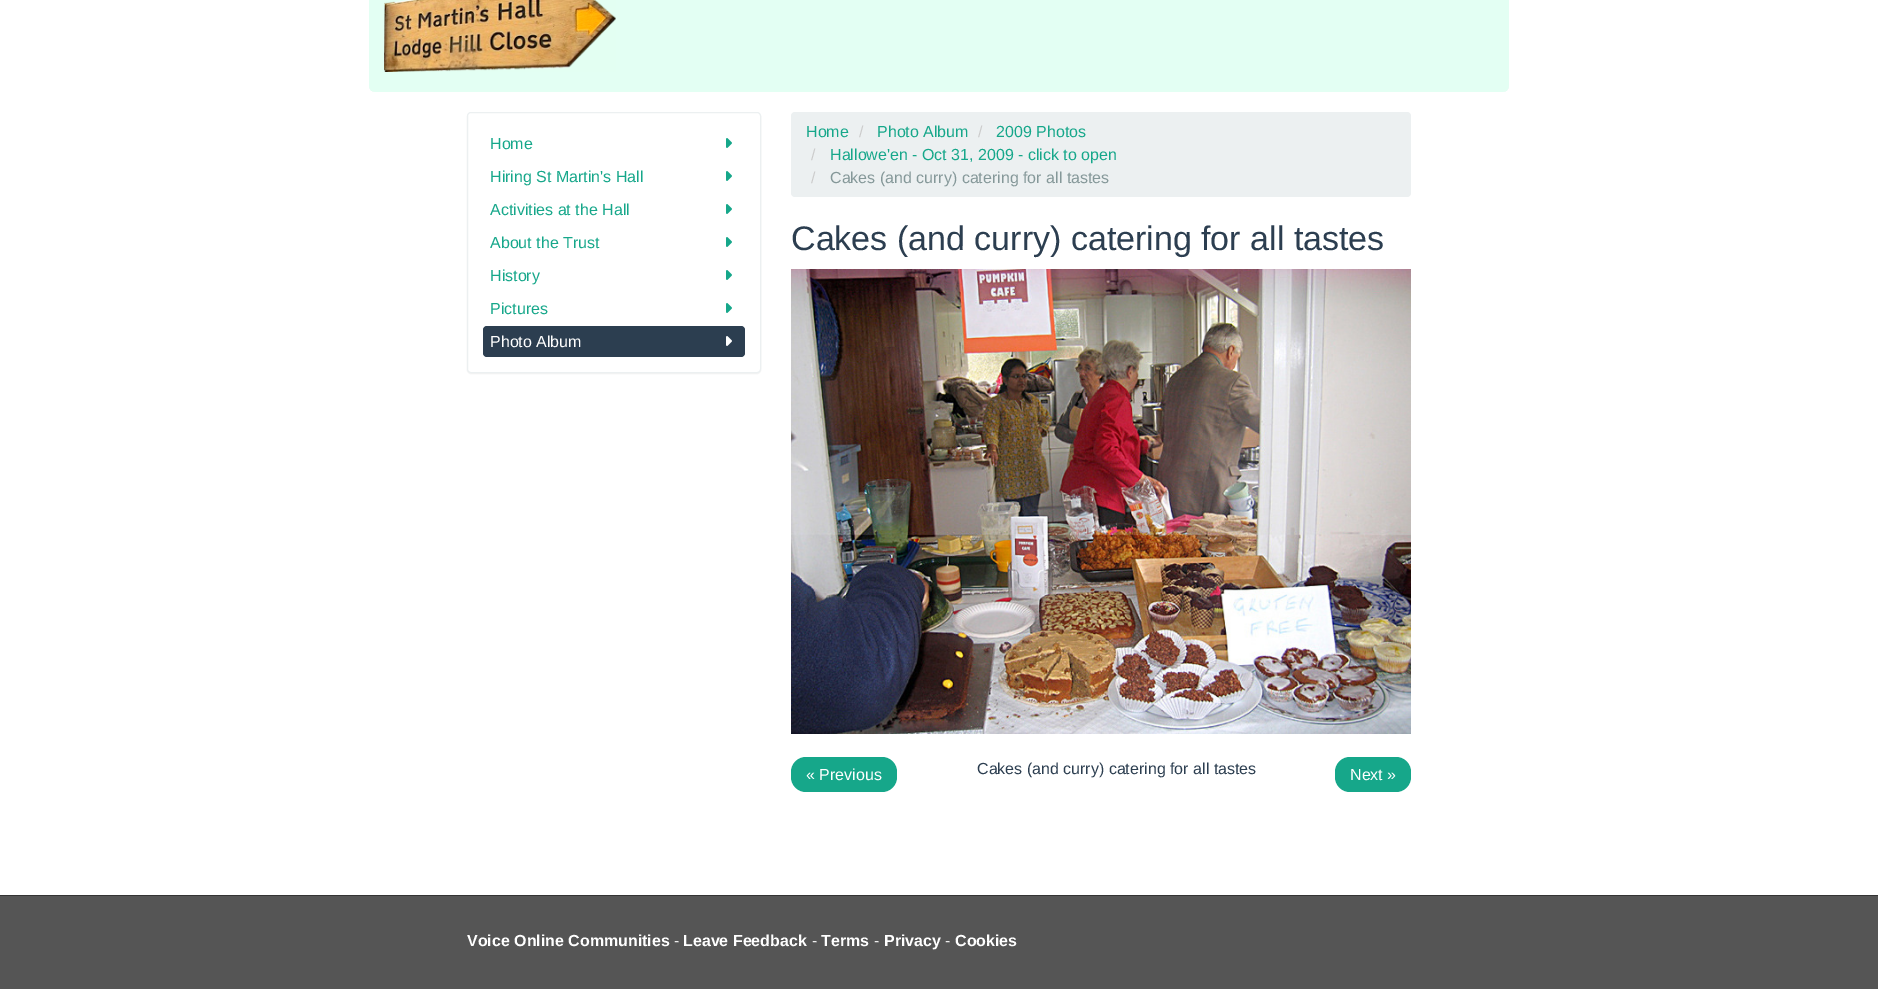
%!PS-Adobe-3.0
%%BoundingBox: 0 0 1878 989
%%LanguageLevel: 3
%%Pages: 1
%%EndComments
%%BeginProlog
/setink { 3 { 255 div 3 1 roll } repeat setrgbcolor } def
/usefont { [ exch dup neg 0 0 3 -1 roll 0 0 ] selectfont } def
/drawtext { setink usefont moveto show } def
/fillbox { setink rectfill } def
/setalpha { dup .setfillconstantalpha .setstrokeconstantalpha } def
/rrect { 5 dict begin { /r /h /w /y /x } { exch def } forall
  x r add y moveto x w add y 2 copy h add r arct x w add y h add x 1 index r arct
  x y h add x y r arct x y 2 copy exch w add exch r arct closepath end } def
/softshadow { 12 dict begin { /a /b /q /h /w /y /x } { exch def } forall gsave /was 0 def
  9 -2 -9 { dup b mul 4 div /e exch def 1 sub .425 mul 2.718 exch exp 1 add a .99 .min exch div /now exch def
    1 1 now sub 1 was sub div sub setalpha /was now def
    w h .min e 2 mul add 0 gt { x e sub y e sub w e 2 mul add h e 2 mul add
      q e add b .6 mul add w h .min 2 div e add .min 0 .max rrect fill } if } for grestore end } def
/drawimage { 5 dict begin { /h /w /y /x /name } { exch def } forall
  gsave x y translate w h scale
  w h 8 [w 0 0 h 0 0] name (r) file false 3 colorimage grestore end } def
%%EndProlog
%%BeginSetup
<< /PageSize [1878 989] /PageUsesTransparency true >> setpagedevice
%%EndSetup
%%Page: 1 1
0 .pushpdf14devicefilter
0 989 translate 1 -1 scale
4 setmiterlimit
0 0 1878 989 255 255 255 fillbox
(assets/img1.rgb) 369 0 1140 92 drawimage
0.5 setalpha
369 -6 1140 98 6 rrect fill
1 setalpha
(assets/img2.rgb) 384 0 232 72 drawimage
0 0 0 setink
467 113 294 261 4 0.5 0.05 softshadow
255 255 255 setink
467.5 112.5 293 260 3.5 rrect gsave fill grestore
236 240 241 setink
stroke
(Home) 490 149 /LiberationSans-Regular 16 22 167 138 drawtext
(assets/img3.rgb) 726 138 6 10 drawimage
(Hiring St Martin's Hall) 490 182 /LiberationSans-Regular 16 22 167 138 drawtext
(assets/img3.rgb) 726 171 6 10 drawimage
(Activities at the Hall) 490 215 /LiberationSans-Regular 16 22 167 138 drawtext
(assets/img3.rgb) 726 204 6 10 drawimage
(About the Trust) 490 248 /LiberationSans-Regular 16 22 167 138 drawtext
(assets/img3.rgb) 726 237 6 10 drawimage
(History) 490 281 /LiberationSans-Regular 16 22 167 138 drawtext
(assets/img3.rgb) 726 270 6 10 drawimage
(Pictures) 490 314 /LiberationSans-Regular 16 22 167 138 drawtext
(assets/img3.rgb) 726 303 6 10 drawimage
44 62 80 setink
483 326 262 31 4 rrect fill
(Photo Album) 490 347 /LiberationSans-Regular 16 255 255 255 drawtext
(assets/img4.rgb) 726 336 6 10 drawimage
236 240 241 setink
791 112 620 85 4 rrect fill
(Home) 806 137 /LiberationSans-Regular 16 22 167 138 drawtext
(/) 859 137 /LiberationSans-Regular 16 204 204 204 drawtext
(Photo Album) 877 137 /LiberationSans-Regular 16 22 167 138 drawtext
(/) 978 137 /LiberationSans-Regular 16 204 204 204 drawtext
(2009 Photos) 996 137 /LiberationSans-Regular 16 22 167 138 drawtext
(/) 811 160 /LiberationSans-Regular 16 204 204 204 drawtext
(Hallowe'en - Oct 31, 2009 - click to open) 830 160 /LiberationSans-Regular 16 22 167 138 drawtext
(/) 811 183 /LiberationSans-Regular 16 204 204 204 drawtext
(Cakes \(and curry\) catering for all tastes) 830 183 /LiberationSans-Regular 16 133 152 153 drawtext
(Cakes \(and curry\) catering for all tastes) 791 250 /LiberationSans-Regular 34 44 62 80 drawtext
(assets/img5.rgb) 791 269 620 465 drawimage
22 167 138 setink
791 757 106 35 15 rrect fill
(« Previous) 806 780 /LiberationSans-Regular 16 255 255 255 drawtext
(Cakes \(and curry\) catering for all tastes) 977 774 /LiberationSans-Regular 16 44 62 80 drawtext
22 167 138 setink
1335 757 76 35 15 rrect fill
(Next ») 1350 780 /LiberationSans-Regular 16 255 255 255 drawtext
0 896 1878 93 85 85 85 fillbox
0 895 1878 1 51 51 51 fillbox
(Voice Online Communities) 467 946 /LiberationSans-Bold 16 255 255 255 drawtext
(-) 674 946 /LiberationSans-Regular 16 238 238 238 drawtext
(Leave Feedback) 683 946 /LiberationSans-Bold 16 255 255 255 drawtext
(-) 812 946 /LiberationSans-Regular 16 238 238 238 drawtext
(Terms) 821 946 /LiberationSans-Bold 16 255 255 255 drawtext
(-) 874 946 /LiberationSans-Regular 16 238 238 238 drawtext
(Privacy) 884 946 /LiberationSans-Bold 16 255 255 255 drawtext
(-) 945 946 /LiberationSans-Regular 16 238 238 238 drawtext
(Cookies) 955 946 /LiberationSans-Bold 16 255 255 255 drawtext
.poppdf14devicefilter showpage
%%EOF
